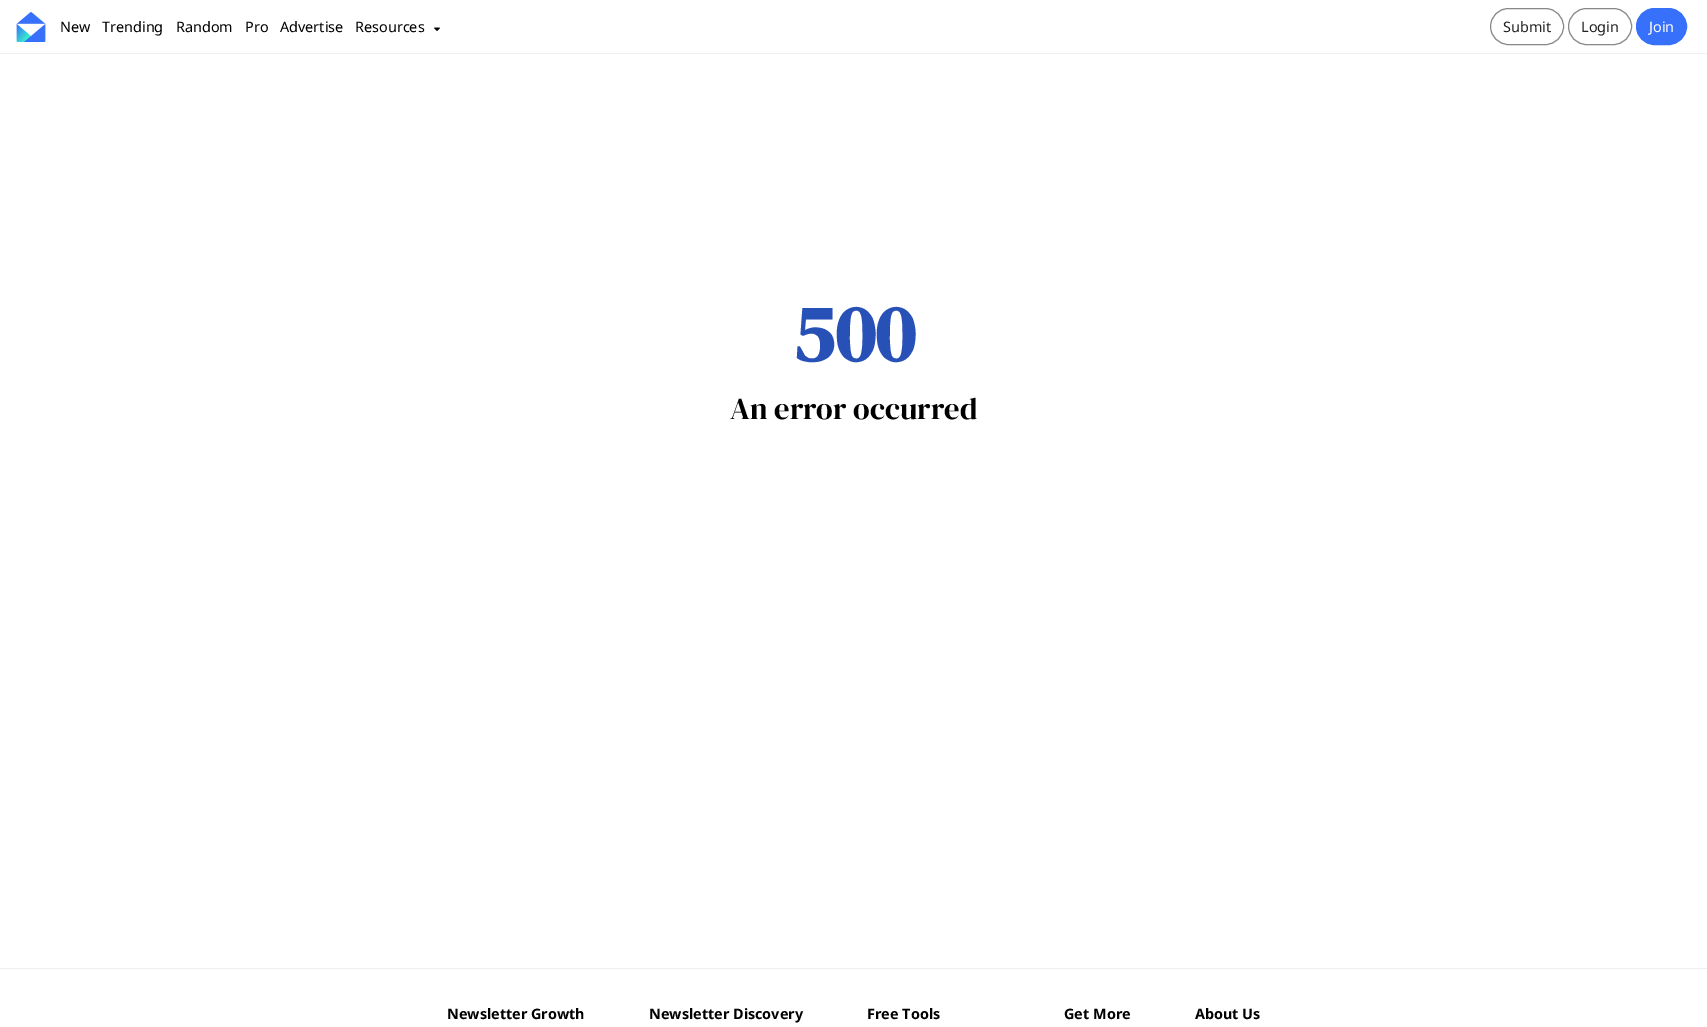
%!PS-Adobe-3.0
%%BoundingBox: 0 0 1707 1027
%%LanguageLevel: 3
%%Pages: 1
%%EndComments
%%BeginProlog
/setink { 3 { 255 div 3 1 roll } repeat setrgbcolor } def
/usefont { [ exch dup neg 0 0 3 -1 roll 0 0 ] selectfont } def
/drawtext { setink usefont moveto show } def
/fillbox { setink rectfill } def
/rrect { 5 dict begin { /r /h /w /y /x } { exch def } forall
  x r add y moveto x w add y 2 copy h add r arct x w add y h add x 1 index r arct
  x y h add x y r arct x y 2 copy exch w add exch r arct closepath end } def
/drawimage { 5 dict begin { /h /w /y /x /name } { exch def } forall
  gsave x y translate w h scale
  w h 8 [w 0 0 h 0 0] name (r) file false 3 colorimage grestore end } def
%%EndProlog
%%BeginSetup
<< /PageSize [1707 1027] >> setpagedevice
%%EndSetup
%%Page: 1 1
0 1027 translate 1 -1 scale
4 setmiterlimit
0 0 1707 1027 255 255 255 fillbox
0 53 1707 1 238 238 238 fillbox
(assets/img1.rgb) 16 12 30 30 drawimage
(New) 60 32 /NotoSans-Regular 14.4 0 0 0 drawtext
(Trending) 102 32 /NotoSans-Regular 14.4 0 0 0 drawtext
(Random) 176 32 /NotoSans-Regular 14.4 0 0 0 drawtext
(Pro) 245 32 /NotoSans-Regular 14.4 0 0 0 drawtext
(Advertise) 280 32 /NotoSans-Regular 14.4 0 0 0 drawtext
(Resources) 355 32 /NotoSans-Regular 14.4 0 0 0 drawtext
(assets/img2.rgb) 434 27 6 4 drawimage
136 136 136 setink
1490.5 8.5 73 36 18 rrect stroke
(Submit) 1503 32 /NotoSans-Regular 14.4 34 34 34 drawtext
136 136 136 setink
1568.5 8.5 63 36 18 rrect stroke
(Login) 1581 32 /NotoSans-Regular 14.4 34 34 34 drawtext
55 112 251 setink
1636.5 8.5 50 36 18 rrect gsave fill grestore
stroke
(Join) 1649 32 /NotoSans-Regular 14.4 255 255 255 drawtext
(500) 792 361 /DMSerifDisplay-Bold 80 40 81 184 drawtext
(An error occurred) 730 419 /DMSerifDisplay-Regular 30.5 0 0 0 drawtext
0 968 1707 1 238 238 238 fillbox
(Newsletter Growth) 447 1019 /NotoSans-Bold 14.4 0 0 0 drawtext
(Newsletter Discovery) 649 1019 /NotoSans-Bold 14.4 0 0 0 drawtext
(Free Tools) 867 1019 /NotoSans-Bold 14.4 0 0 0 drawtext
(Get More) 1064 1019 /NotoSans-Bold 14.4 0 0 0 drawtext
(About Us) 1195 1019 /NotoSans-Bold 14.4 0 0 0 drawtext
showpage
%%EOF
